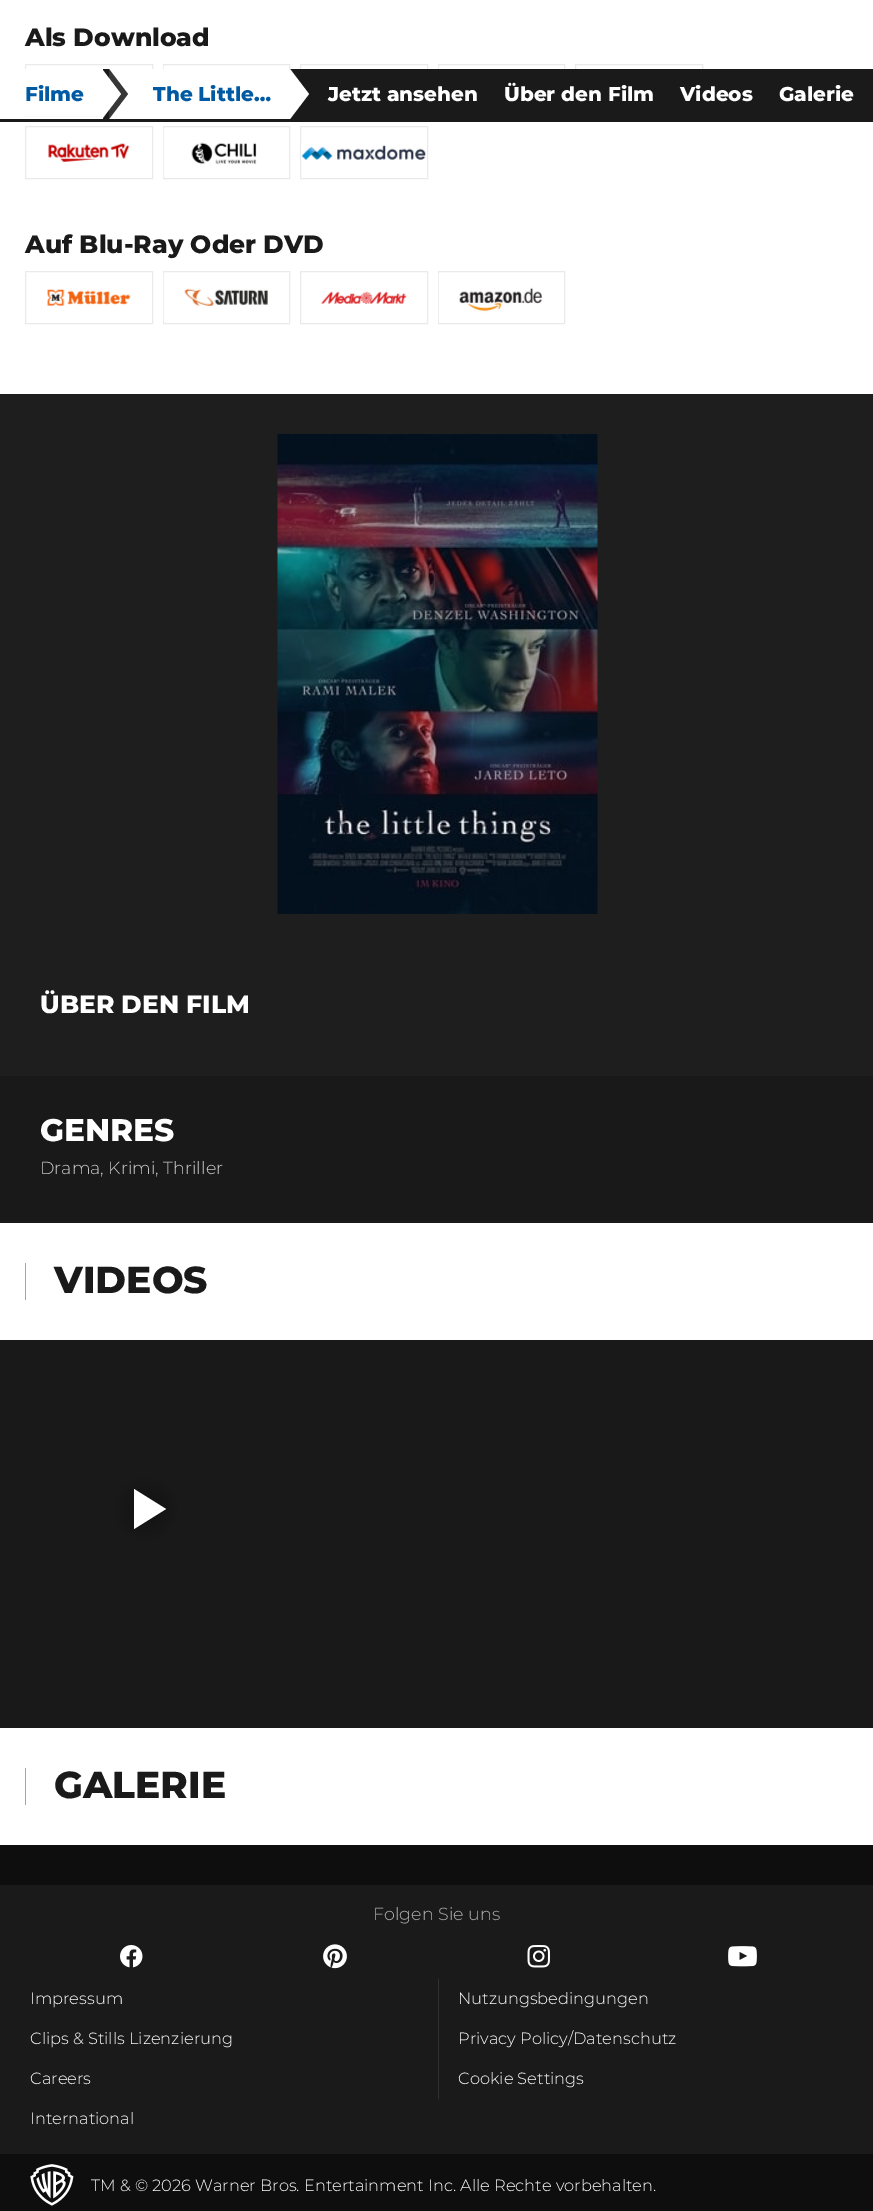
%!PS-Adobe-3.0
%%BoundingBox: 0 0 873 2211
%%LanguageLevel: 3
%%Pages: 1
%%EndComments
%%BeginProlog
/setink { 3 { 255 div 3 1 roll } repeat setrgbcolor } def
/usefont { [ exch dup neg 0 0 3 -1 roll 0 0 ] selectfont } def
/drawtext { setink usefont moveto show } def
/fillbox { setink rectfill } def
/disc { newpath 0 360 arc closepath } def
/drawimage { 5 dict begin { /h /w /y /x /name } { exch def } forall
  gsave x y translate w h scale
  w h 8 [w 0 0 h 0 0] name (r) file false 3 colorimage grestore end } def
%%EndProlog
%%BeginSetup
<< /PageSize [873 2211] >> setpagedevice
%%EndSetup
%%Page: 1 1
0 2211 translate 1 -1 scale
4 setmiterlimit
0 0 873 2211 14 14 14 fillbox
0 0 873 394 255 255 255 fillbox
(Als Download) 25 46 /Montserrat-ExtraBold 25 26 26 26 drawtext
234 234 234 setink
25.5 64.5 127 51 rectstroke
163.5 64.5 126 51 rectstroke
(assets/img1.rgb) 163 66 125 3 drawimage
300.5 64.5 127 51 rectstroke
438.5 64.5 126 51 rectstroke
(assets/img2.rgb) 438 66 125 3 drawimage
575.5 64.5 127 51 rectstroke
25.5 126.5 127 52 rectstroke
(assets/img3.rgb) 48 143 82 20 drawimage
163.5 126.5 126 52 rectstroke
(assets/img4.rgb) 163 128 94 49 drawimage
300.5 126.5 127 52 rectstroke
(assets/img5.rgb) 301 145 125 15 drawimage
(Auf Blu-Ray Oder DVD) 25 253 /Montserrat-ExtraBold 25 26 26 26 drawtext
234 234 234 setink
25.5 271.5 127 52 rectstroke
(assets/img6.rgb) 47 289 84 17 drawimage
163.5 271.5 126 52 rectstroke
(assets/img7.rgb) 163 273 105 49 drawimage
300.5 271.5 127 52 rectstroke
(assets/img8.rgb) 321 291 86 13 drawimage
438.5 271.5 126 52 rectstroke
(assets/img9.rgb) 438 273 104 49 drawimage
103 69 770 50 26 26 26 fillbox
0 119 873 3 26 26 26 fillbox
25 69 78 47 255 255 255 fillbox
(Filme) 25 101 /Montserrat-ExtraBold 20 0 90 163 drawtext
109 69 181 50 255 255 255 fillbox
55 55 55 setink
109 119 moveto 109 69 lineto 128 94 lineto closepath fill
255 255 255 setink
102 119 moveto 102 69 lineto 121 94 lineto closepath fill
gsave
153 83 118 23 rectclip
(The Little…) 153 101 /Montserrat-ExtraBold 20 0 90 163 drawtext
grestore
290 119 moveto 290 69 lineto 309 94 lineto closepath fill
(Jetzt ansehen) 328 101 /Montserrat-ExtraBold 20 255 255 255 drawtext
(Über den Film) 504 101 /Montserrat-ExtraBold 20 255 255 255 drawtext
(Videos) 680 101 /Montserrat-ExtraBold 20 255 255 255 drawtext
(Galerie) 779 101 /Montserrat-ExtraBold 20 255 255 255 drawtext
0 394 873 682 30 30 30 fillbox
(assets/img10.rgb) 277 434 321 480 drawimage
(ÜBER DEN FILM) 40 1013 /Montserrat-ExtraBold 25 255 255 255 drawtext
0 1076 873 147 25 25 25 fillbox
(GENRES) 40 1141 /Montserrat-ExtraBold 31.25 255 255 255 drawtext
(Drama, Krimi, Thriller) 40 1174 /Montserrat-Light 17.5 198 198 198 drawtext
0 1223 873 117 255 255 255 fillbox
25 1263 1 37 165 165 165 fillbox
(VIDEOS) 54 1293 /Montserrat-ExtraBold 37.5 26 26 26 drawtext
0 1340 873 388 25 25 25 fillbox
gsave 146 1509 40 disc clip newpath 146 1509 translate 57 57 scale
<< /ShadingType 3 /ColorSpace /DeviceRGB /Coords [0 0 0 0 0 1] /Extend [true true] /Function << /FunctionType 3 /Domain [0 1] /Functions [<< /FunctionType 2 /Domain [0 1] /C0 [0.071 0.071 0.071] /C1 [0.098 0.098 0.098] /N 1 >> << /FunctionType 2 /Domain [0 1] /C0 [0.098 0.098 0.098] /C1 [0.098 0.098 0.098] /N 1 >>] /Bounds [0.6] /Encode [0 1 0 1] >> >> shfill grestore
255 255 255 setink
134 1529 moveto 134 1489 lineto 166 1509 lineto closepath fill
0 1728 873 117 255 255 255 fillbox
25 1768 1 37 165 165 165 fillbox
(GALERIE) 54 1798 /Montserrat-ExtraBold 37.5 26 26 26 drawtext
0 1885 873 269 26 26 26 fillbox
(Folgen Sie uns) 373 1920 /Montserrat-Light 17.5 174 174 174 drawtext
(assets/img11.rgb) 120 1945 23 23 drawimage
(assets/img12.rgb) 323 1944 24 25 drawimage
(assets/img13.rgb) 527 1945 23 23 drawimage
(assets/img14.rgb) 728 1946 29 21 drawimage
(Impressum) 30 2004 /Montserrat-Light 16.25 255 255 255 drawtext
(Clips & Stills Lizenzierung) 30 2044 /Montserrat-Light 16.25 255 255 255 drawtext
(Careers) 30 2084 /Montserrat-Light 16.25 255 255 255 drawtext
(International) 30 2124 /Montserrat-Light 16.25 255 255 255 drawtext
438 1979 1 120 49 49 49 fillbox
(Nutzungsbedingungen) 458 2004 /Montserrat-Light 16.25 255 255 255 drawtext
(Privacy Policy/Datenschutz) 458 2044 /Montserrat-Light 16.25 255 255 255 drawtext
(Cookie Settings) 458 2084 /Montserrat-Light 16.25 255 255 255 drawtext
(assets/img15.rgb) 30 2164 44 42 drawimage
(TM & © 2026 Warner Bros. Entertainment Inc. Alle Rechte vorbehalten.) 91 2191 /Montserrat-Light 16.25 255 255 255 drawtext
showpage
%%EOF
